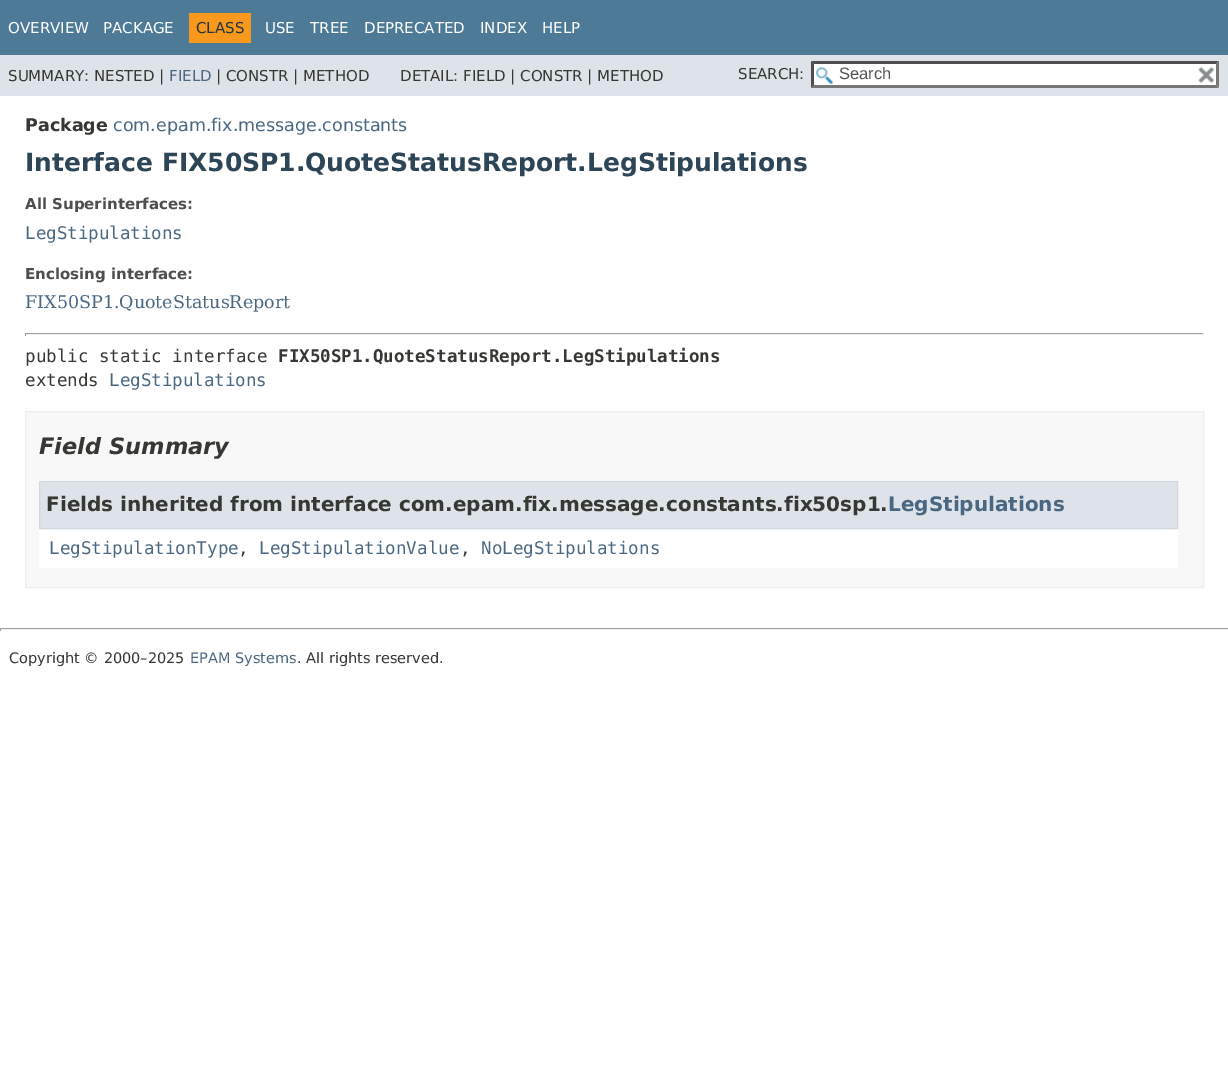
%!PS-Adobe-3.0
%%BoundingBox: 0 0 1228 1083
%%LanguageLevel: 3
%%Pages: 1
%%EndComments
%%BeginProlog
/setink { 3 { 255 div 3 1 roll } repeat setrgbcolor } def
/usefont { [ exch dup neg 0 0 3 -1 roll 0 0 ] selectfont } def
/drawtext { setink usefont moveto show } def
/fillbox { setink rectfill } def
/drawimage { 5 dict begin { /h /w /y /x /name } { exch def } forall
  gsave x y translate w h scale
  w h 8 [w 0 0 h 0 0] name (r) file false 3 colorimage grestore end } def
%%EndProlog
%%BeginSetup
<< /PageSize [1228 1083] >> setpagedevice
%%EndSetup
%%Page: 1 1
0 1083 translate 1 -1 scale
4 setmiterlimit
0 0 1228 1083 255 255 255 fillbox
0 0 1228 55 77 122 151 fillbox
(OVERVIEW) 8 33 /DejaVuSans-Regular 15 255 255 255 drawtext
(PACKAGE) 103 33 /DejaVuSans-Regular 15 255 255 255 drawtext
189 13 62 30 248 152 29 fillbox
(CLASS) 196 33 /DejaVuSans-Regular 15 37 52 65 drawtext
(USE) 265 33 /DejaVuSans-Regular 15 255 255 255 drawtext
(TREE) 310 33 /DejaVuSans-Regular 15 255 255 255 drawtext
(DEPRECATED) 364 33 /DejaVuSans-Regular 15 255 255 255 drawtext
(INDEX) 480 33 /DejaVuSans-Regular 15 255 255 255 drawtext
(HELP) 542 33 /DejaVuSans-Regular 15 255 255 255 drawtext
0 55 1228 41 222 227 233 fillbox
(SUMMARY: NESTED |) 8 81 /DejaVuSans-Regular 15 53 56 51 drawtext
(FIELD) 169 81 /DejaVuSans-Regular 15 74 103 130 drawtext
(| CONSTR | METHOD) 216 81 /DejaVuSans-Regular 15 53 56 51 drawtext
(DETAIL: FIELD | CONSTR | METHOD) 400 81 /DejaVuSans-Regular 15 53 56 51 drawtext
(SEARCH:) 738 79 /DejaVuSans-Regular 15 53 56 51 drawtext
811 61 408 27 255 255 255 fillbox
(assets/img1.rgb) 816 67 17 17 drawimage
79 79 79 setink
811 61 moveto 1219 61 lineto 1216 64 lineto 814 64 lineto closepath fill
118 118 118 setink
1219 61 moveto 1219 87.5 lineto 1216 85 lineto 1216 64 lineto closepath fill
1219 88 moveto 811 88 lineto 814 85 lineto 1216 85 lineto closepath fill
79 79 79 setink
811 87.5 moveto 811 61 lineto 814 64 lineto 814 85 lineto closepath fill
(Search) 839 79 /LiberationSans-Regular 16.5 84 84 84 drawtext
(assets/img2.rgb) 1198 67 16 16 drawimage
(Package) 25 131 /DejaVuSans-Bold 17.5 53 56 51 drawtext
(com.epam.fix.message.constants) 113 131 /DejaVuSans-Regular 17.5 74 103 130 drawtext
(Interface FIX50SP1.QuoteStatusReport.LegStipulations) 25 171 /DejaVuSans-Bold 25 44 69 87 drawtext
(All Superinterfaces:) 25 209 /DejaVuSans-Bold 15 78 78 78 drawtext
(LegStipulations) 25 239 /DejaVuSansMono-Regular 17.5 74 103 130 drawtext
(Enclosing interface:) 25 279 /DejaVuSans-Bold 15 78 78 78 drawtext
(FIX50SP1.QuoteStatusReport) 25 308 /DejaVuSerif-Regular 17.5 74 103 130 drawtext
25 333 1179 1 159 159 159 fillbox
1203 333 1 3 238 238 238 fillbox
25 334 1179 1 238 238 238 fillbox
25 333 1 3 159 159 159 fillbox
(public static interface) 25 362 /DejaVuSansMono-Regular 17.5 53 56 51 drawtext
(FIX50SP1.QuoteStatusReport.LegStipulations) 278 362 /DejaVuSansMono-Bold 17.5 53 56 51 drawtext
(extends) 25 386 /DejaVuSansMono-Regular 17.5 53 56 51 drawtext
(LegStipulations) 109 386 /DejaVuSansMono-Regular 17.5 74 103 130 drawtext
248 248 248 setink
25.5 411.5 moveto 1203.5 411.5 lineto 1203.5 587.5 lineto 25.5 587.5 lineto closepath gsave fill grestore
237 237 237 setink
stroke
(Field Summary) 39 454 /DejaVuSans-BoldItalic 22.5 53 56 51 drawtext
39 529 1139 39 255 255 255 fillbox
222 227 233 setink
39.5 481.5 moveto 1177.5 481.5 lineto 1177.5 528.5 lineto 39.5 528.5 lineto closepath gsave fill grestore
208 217 224 setink
stroke
(Fields inherited from interface com.epam.fix.message.constants.fix50sp1.) 46 511 /DejaVuSans-Bold 20 53 56 51 drawtext
(LegStipulations) 888 511 /DejaVuSans-Bold 20 74 103 130 drawtext
(LegStipulationType) 49 554 /DejaVuSansMono-Regular 17.5 74 103 130 drawtext
(,) 238 554 /DejaVuSansMono-Regular 17.5 53 56 51 drawtext
(LegStipulationValue) 259 554 /DejaVuSansMono-Regular 17.5 74 103 130 drawtext
(,) 460 554 /DejaVuSansMono-Regular 17.5 53 56 51 drawtext
(NoLegStipulations) 481 554 /DejaVuSansMono-Regular 17.5 74 103 130 drawtext
0 628 1228 1 159 159 159 fillbox
0 629 1228 1 238 238 238 fillbox
0 628 1 3 159 159 159 fillbox
(Copyright © 2000–2025) 9 663 /DejaVuSans-Regular 14.5 53 56 51 drawtext
(EPAM Systems) 190 663 /DejaVuSans-Regular 14.5 74 103 130 drawtext
(. All rights reserved.) 297 663 /DejaVuSans-Regular 14.5 53 56 51 drawtext
showpage
%%EOF
